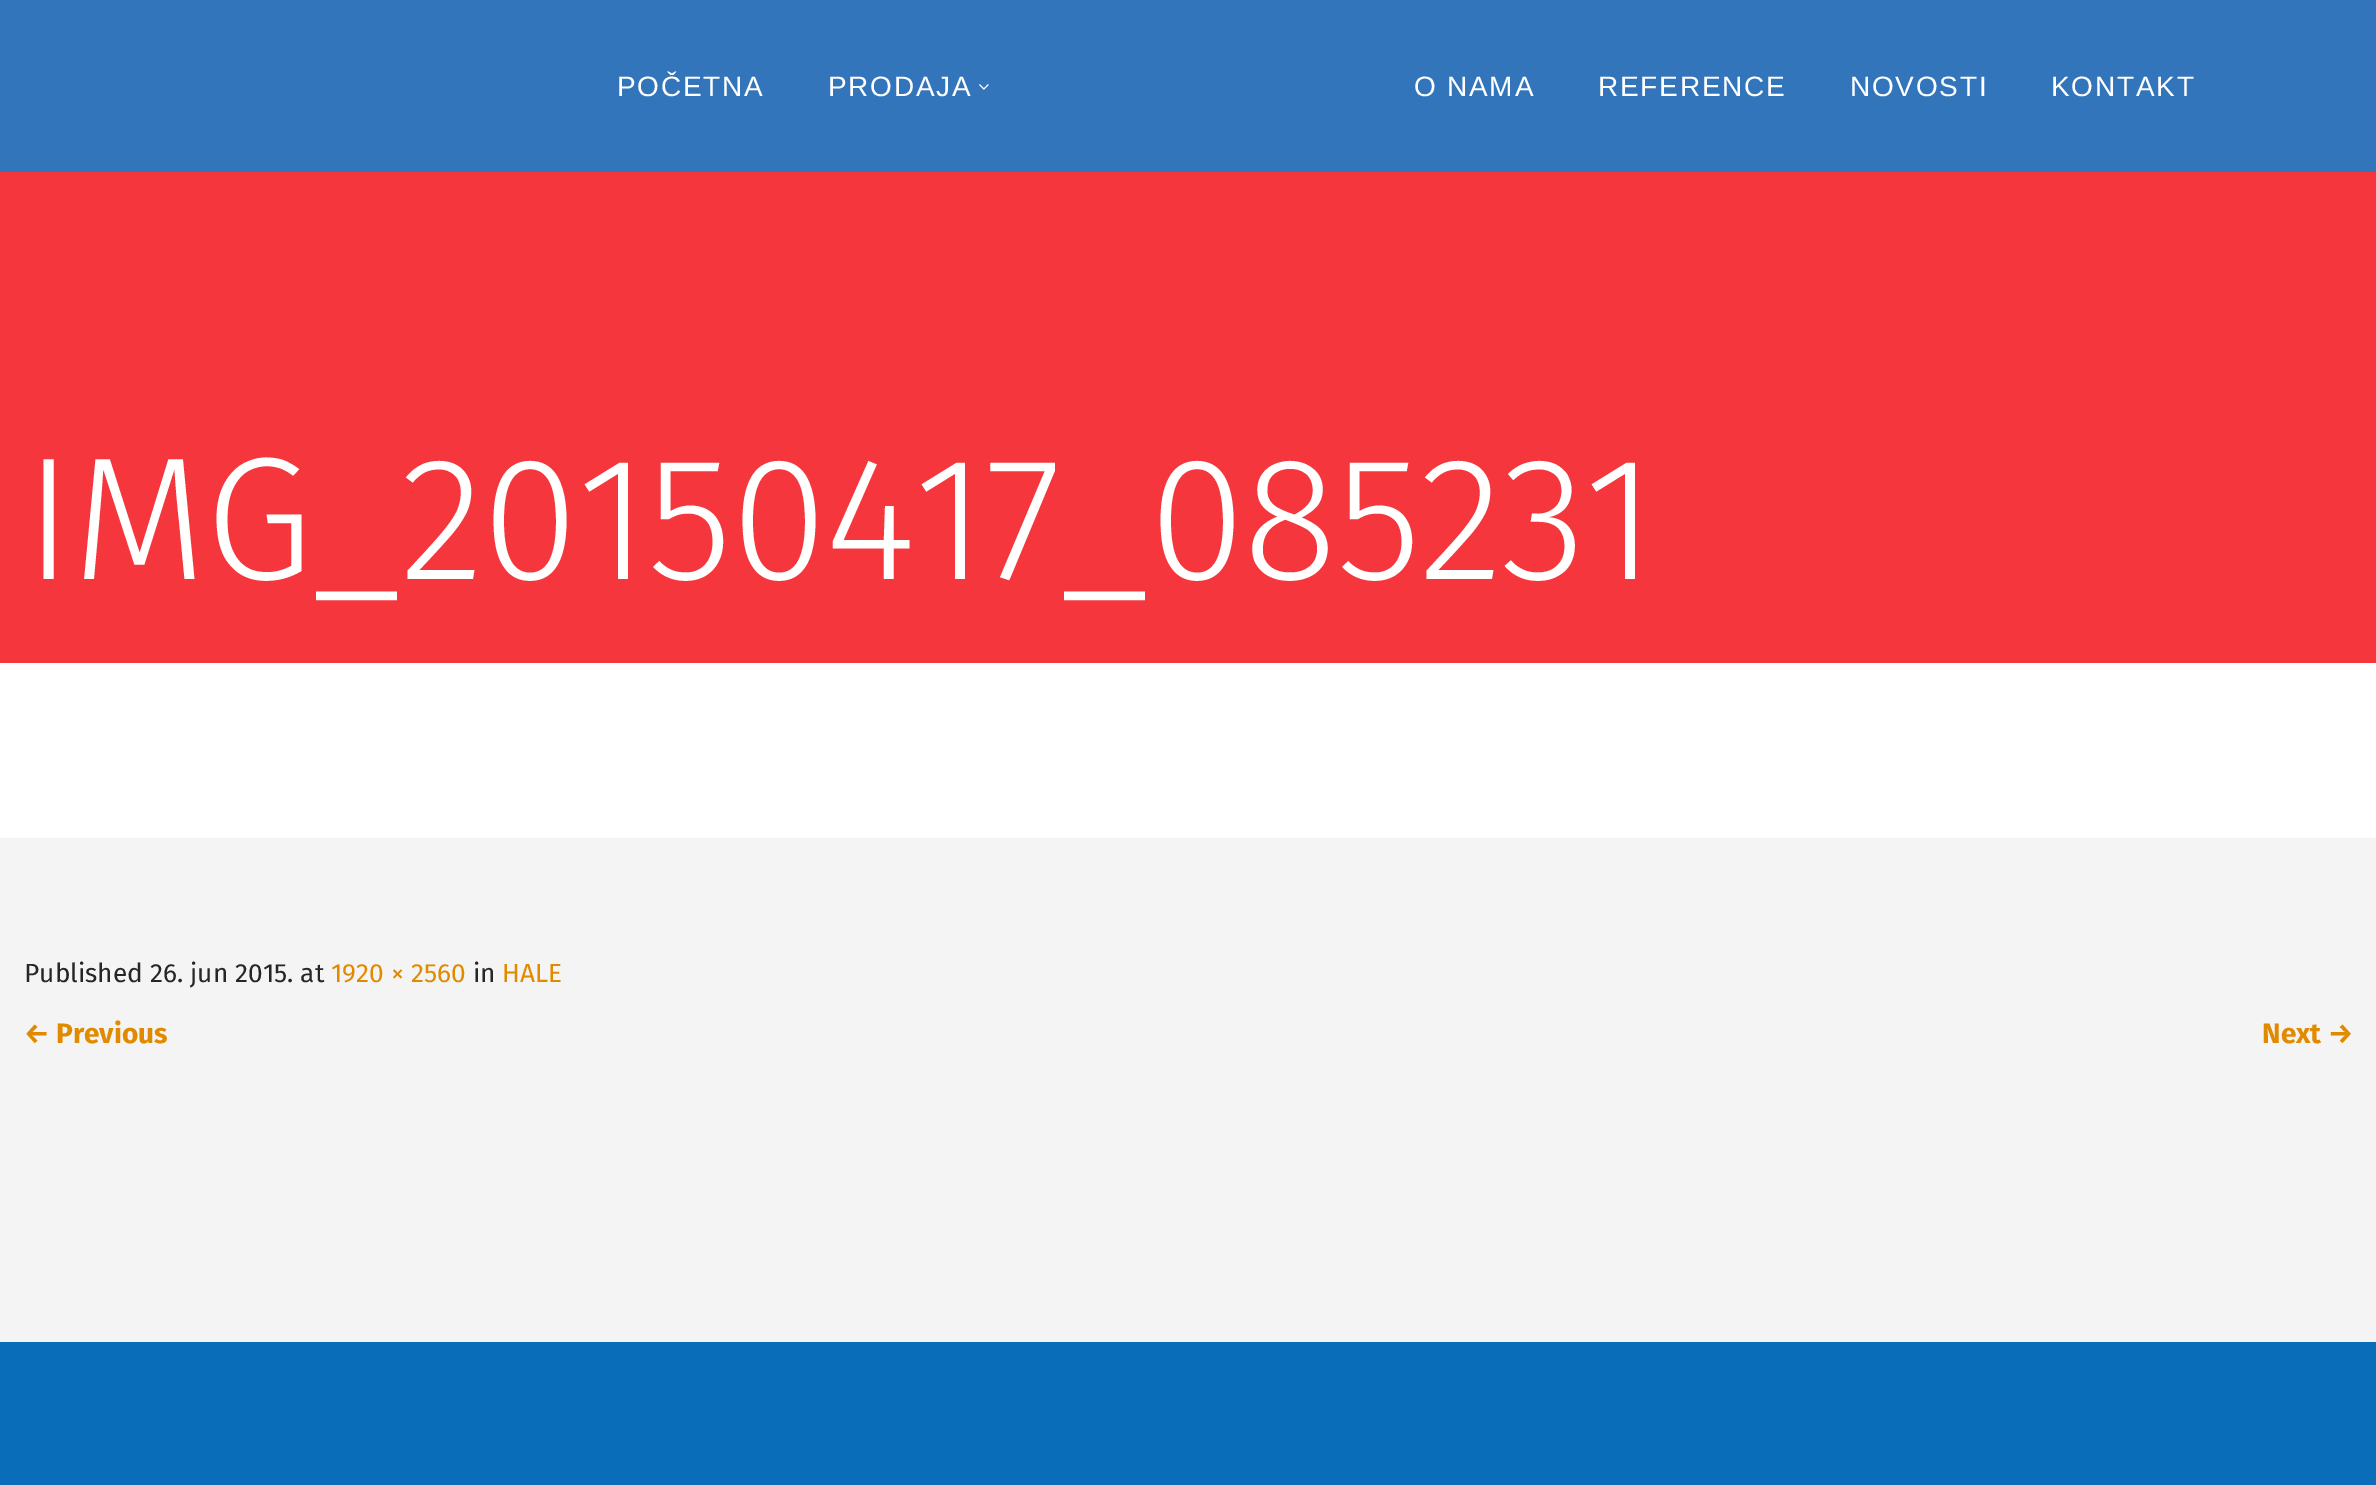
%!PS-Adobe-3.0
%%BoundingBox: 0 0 2376 1485
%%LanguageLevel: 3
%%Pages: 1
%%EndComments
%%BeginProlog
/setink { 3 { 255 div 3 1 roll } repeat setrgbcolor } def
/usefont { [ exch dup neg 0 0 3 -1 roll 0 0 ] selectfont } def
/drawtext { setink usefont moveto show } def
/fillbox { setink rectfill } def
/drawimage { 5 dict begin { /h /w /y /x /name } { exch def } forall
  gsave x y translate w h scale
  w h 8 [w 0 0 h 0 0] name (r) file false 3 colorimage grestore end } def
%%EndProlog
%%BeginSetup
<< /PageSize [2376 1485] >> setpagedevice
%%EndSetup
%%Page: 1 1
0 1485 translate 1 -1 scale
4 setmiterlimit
0 0 2376 1485 255 255 255 fillbox
0 0 2376 172 51 117 187 fillbox
/LiberationSans-Regular 28 usefont
255 255 255 setink
617 96 moveto 1.75 0 (POČETNA) ashow
828 96 moveto 1.75 0 (PRODAJA) ashow
(assets/img1.rgb) 979 84 10 6 drawimage
1414 96 moveto 1.75 0 (O NAMA) ashow
1598 96 moveto 1.75 0 (REFERENCE) ashow
1850 96 moveto 1.75 0 (NOVOSTI) ashow
2051 96 moveto 1.75 0 (KONTAKT) ashow
0 172 2376 491 245 54 60 fillbox
/FiraSans-Light 175 usefont
255 255 255 setink
24 579 moveto -1.75 0 (IMG_20150417_085231) ashow
0 838 2376 504 244 244 244 fillbox
(Published 26. jun 2015. at) 24 982 /FiraSans-Regular 26.25 38 38 38 drawtext
(1920 × 2560) 331 982 /FiraSans-Regular 26.25 225 138 0 drawtext
(in) 473 982 /FiraSans-Regular 26.25 38 38 38 drawtext
(HALE) 502 982 /FiraSans-Regular 26.25 225 138 0 drawtext
(← Previous) 24 1043 /FiraSans-Bold 28 225 138 0 drawtext
(Next →) 2262 1043 /FiraSans-Bold 28 225 138 0 drawtext
0 1342 2376 143 9 109 186 fillbox
showpage
%%EOF
